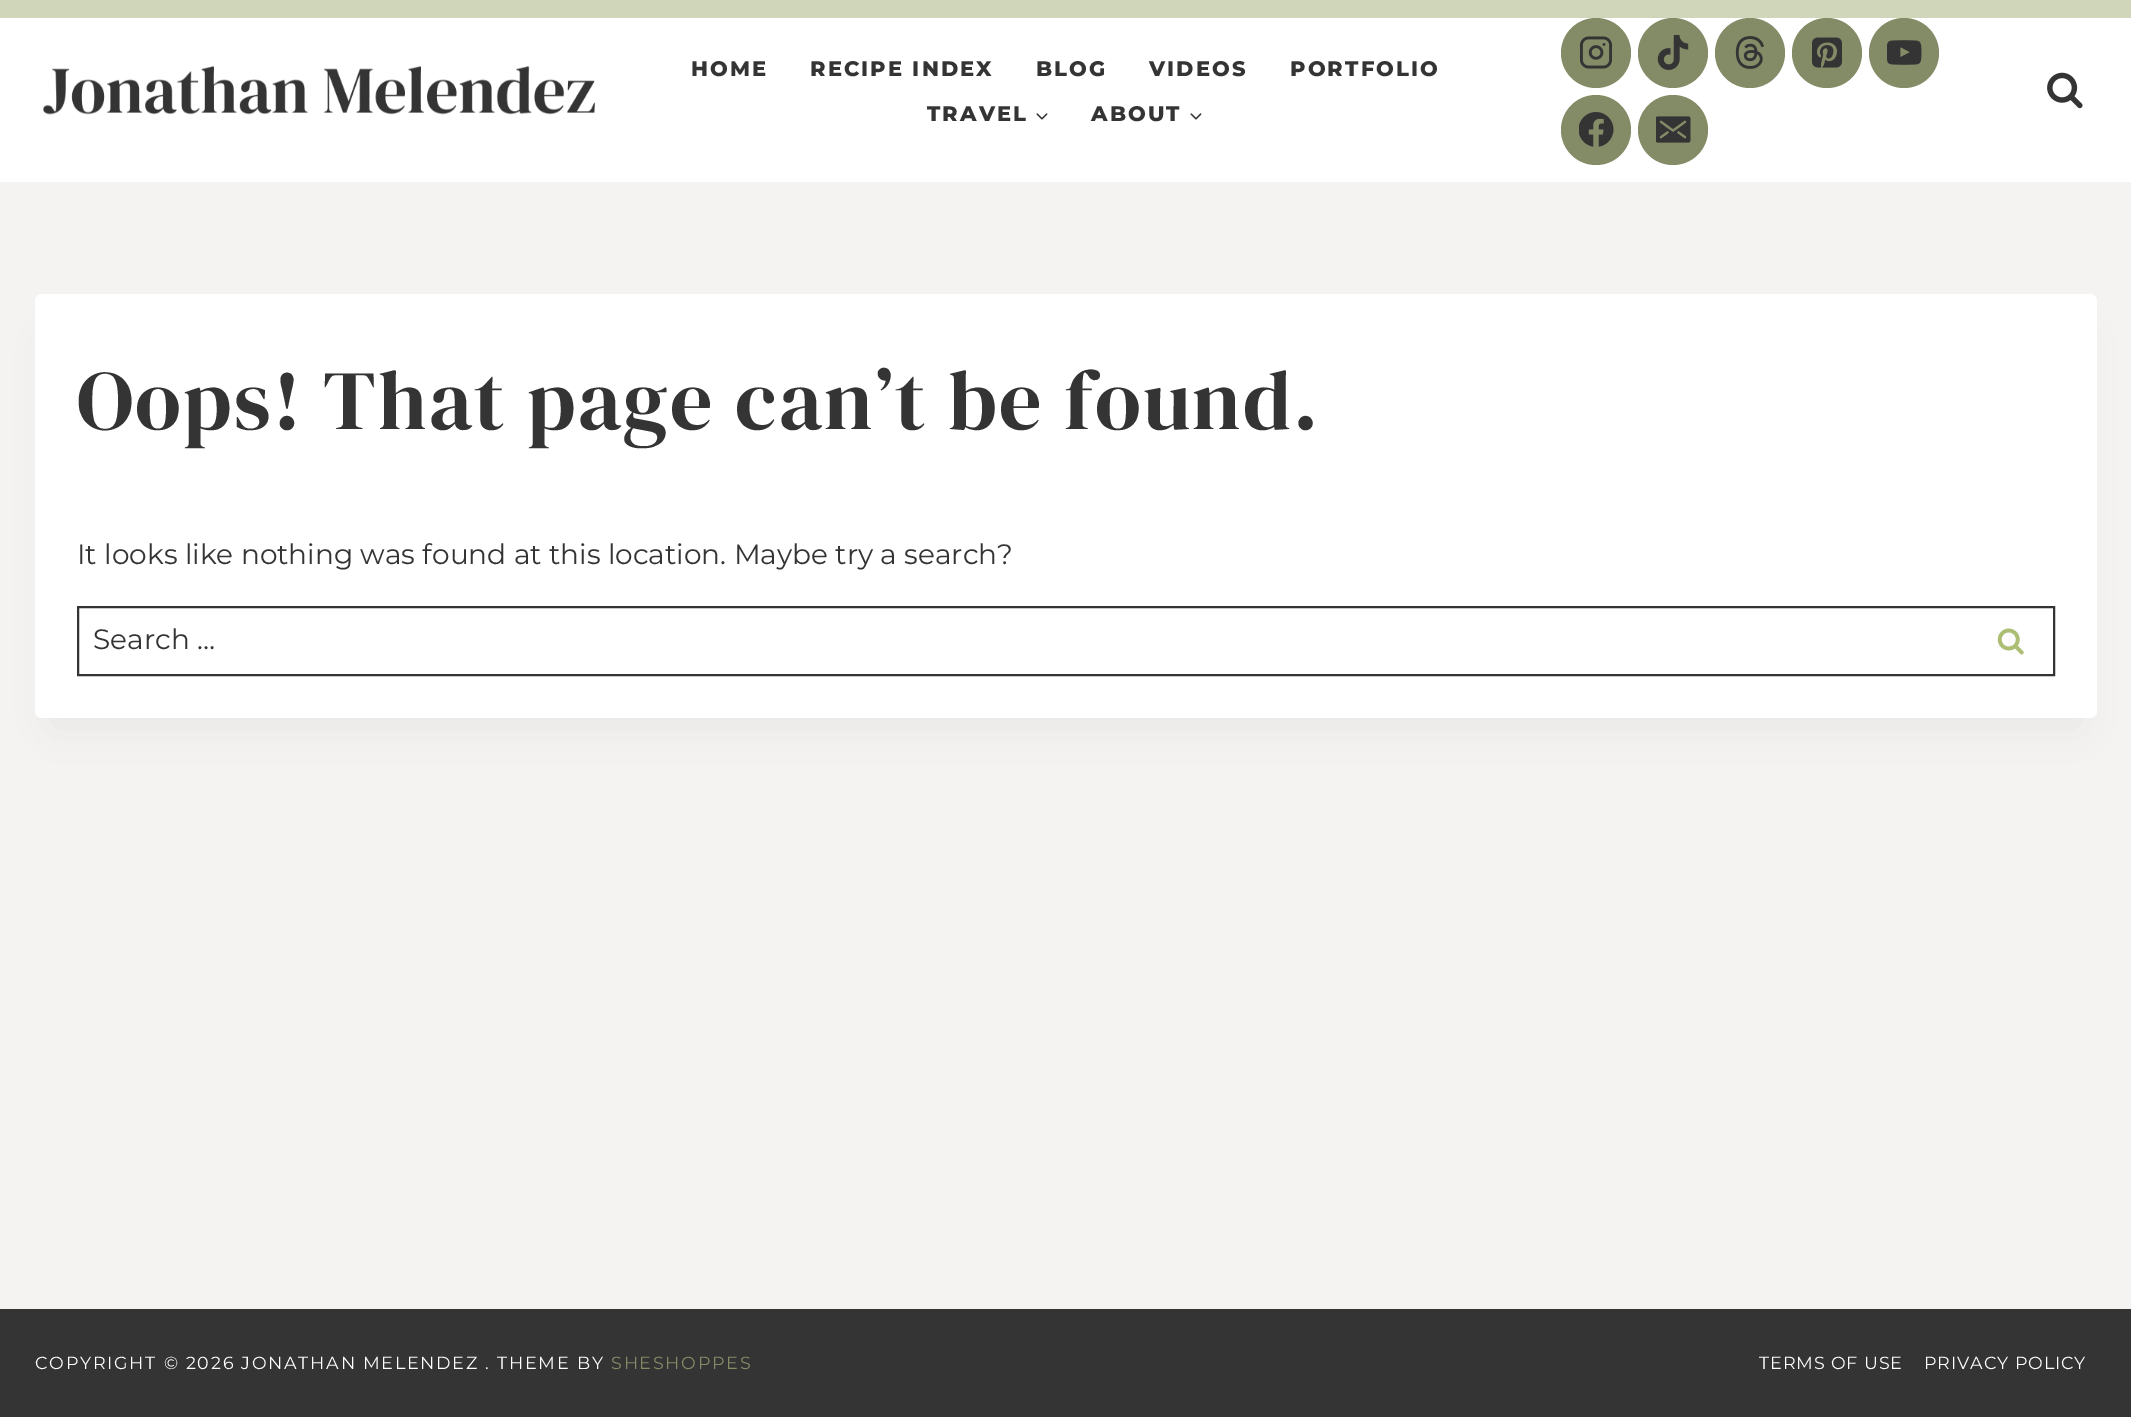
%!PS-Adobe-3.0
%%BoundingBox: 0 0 2131 1417
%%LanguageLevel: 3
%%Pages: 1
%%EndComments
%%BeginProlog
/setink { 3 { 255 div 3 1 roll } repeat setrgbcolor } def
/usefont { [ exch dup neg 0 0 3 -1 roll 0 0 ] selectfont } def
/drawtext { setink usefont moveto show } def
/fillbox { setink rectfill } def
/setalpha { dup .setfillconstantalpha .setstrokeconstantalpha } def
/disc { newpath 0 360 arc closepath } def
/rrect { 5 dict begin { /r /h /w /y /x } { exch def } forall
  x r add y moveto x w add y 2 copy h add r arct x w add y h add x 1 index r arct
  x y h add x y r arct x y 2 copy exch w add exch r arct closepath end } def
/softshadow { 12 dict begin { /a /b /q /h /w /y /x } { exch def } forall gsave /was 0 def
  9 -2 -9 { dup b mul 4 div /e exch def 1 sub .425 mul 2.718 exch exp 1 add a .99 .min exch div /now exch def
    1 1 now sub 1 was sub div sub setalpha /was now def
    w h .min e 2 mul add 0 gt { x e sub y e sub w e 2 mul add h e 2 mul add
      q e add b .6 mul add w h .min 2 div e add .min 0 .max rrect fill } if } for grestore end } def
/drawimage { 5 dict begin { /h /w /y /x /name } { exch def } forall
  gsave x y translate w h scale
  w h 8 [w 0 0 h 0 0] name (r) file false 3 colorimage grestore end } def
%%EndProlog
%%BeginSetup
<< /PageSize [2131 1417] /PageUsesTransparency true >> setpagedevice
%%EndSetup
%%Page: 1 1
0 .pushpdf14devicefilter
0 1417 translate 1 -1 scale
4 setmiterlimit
0 0 2131 1417 244 243 241 fillbox
0 18 2131 164 255 255 255 fillbox
0 0 2131 18 208 214 186 fillbox
(assets/img1.rgb) 43 66 553 49 drawimage
/Montserrat-ExtraBold 21 usefont
52 52 52 setink
691 76 moveto 2.1 0 (HOME) ashow
810 76 moveto 2.1 0 (RECIPE INDEX) ashow
1036 76 moveto 2.1 0 (BLOG) ashow
1149 76 moveto 2.1 0 (VIDEOS) ashow
1290 76 moveto 2.1 0 (PORTFOLIO) ashow
927 121 moveto 2.1 0 (TRAVEL) ashow
(assets/img2.rgb) 1036 113 12 7 drawimage
1091 121 moveto 2.1 0 (ABOUT) ashow
(assets/img2.rgb) 1190 113 12 7 drawimage
132 139 103 setink
1596 53 35 disc fill
(assets/img3.rgb) 1580 36 32 33 drawimage
1673 53 35 disc fill
(assets/img4.rgb) 1657 35 32 35 drawimage
1750 53 35 disc fill
(assets/img5.rgb) 1735 36 29 33 drawimage
1827 53 35 disc fill
(assets/img6.rgb) 1812 37 30 31 drawimage
1904 53 35 disc fill
(assets/img7.rgb) 1887 40 35 25 drawimage
1596 130 35 disc fill
(assets/img8.rgb) 1579 112 35 35 drawimage
1673 130 35 disc fill
(assets/img9.rgb) 1656 116 35 27 drawimage
(assets/img10.rgb) 2047 72 36 37 drawimage
0 0 0 setink
53 338 2026 388 0 22 0.05 softshadow
255 255 255 setink
35 294 2062 424 7 rrect fill
/DMSerifDisplay-Regular 84 usefont
52 52 52 setink
77 429 moveto 2.1 0 (Oops! That page can’t be found.) ashow
(It looks like nothing was found at this location. Maybe try a search?) 77 564 /Montserrat-Regular 28 52 52 52 drawtext
2 setlinewidth
78 607 1976 68 rectstroke
(Search …) 93 649 /Montserrat-Regular 28 52 52 52 drawtext
(assets/img11.rgb) 1997 628 27 27 drawimage
0 1309 2131 108 52 52 52 fillbox
/Montserrat-Regular 17.5 usefont
255 255 255 setink
35 1369 moveto 1.75 0 (COPYRIGHT © 2026 JONATHAN MELENDEZ . THEME BY) ashow
132 139 103 setink
611 1369 moveto 1.75 0 (SHESHOPPES) ashow
255 255 255 setink
1759 1369 moveto 0.9 0 (TERMS OF USE) ashow
1924 1369 moveto 0.9 0 (PRIVACY POLICY) ashow
.poppdf14devicefilter showpage
%%EOF
